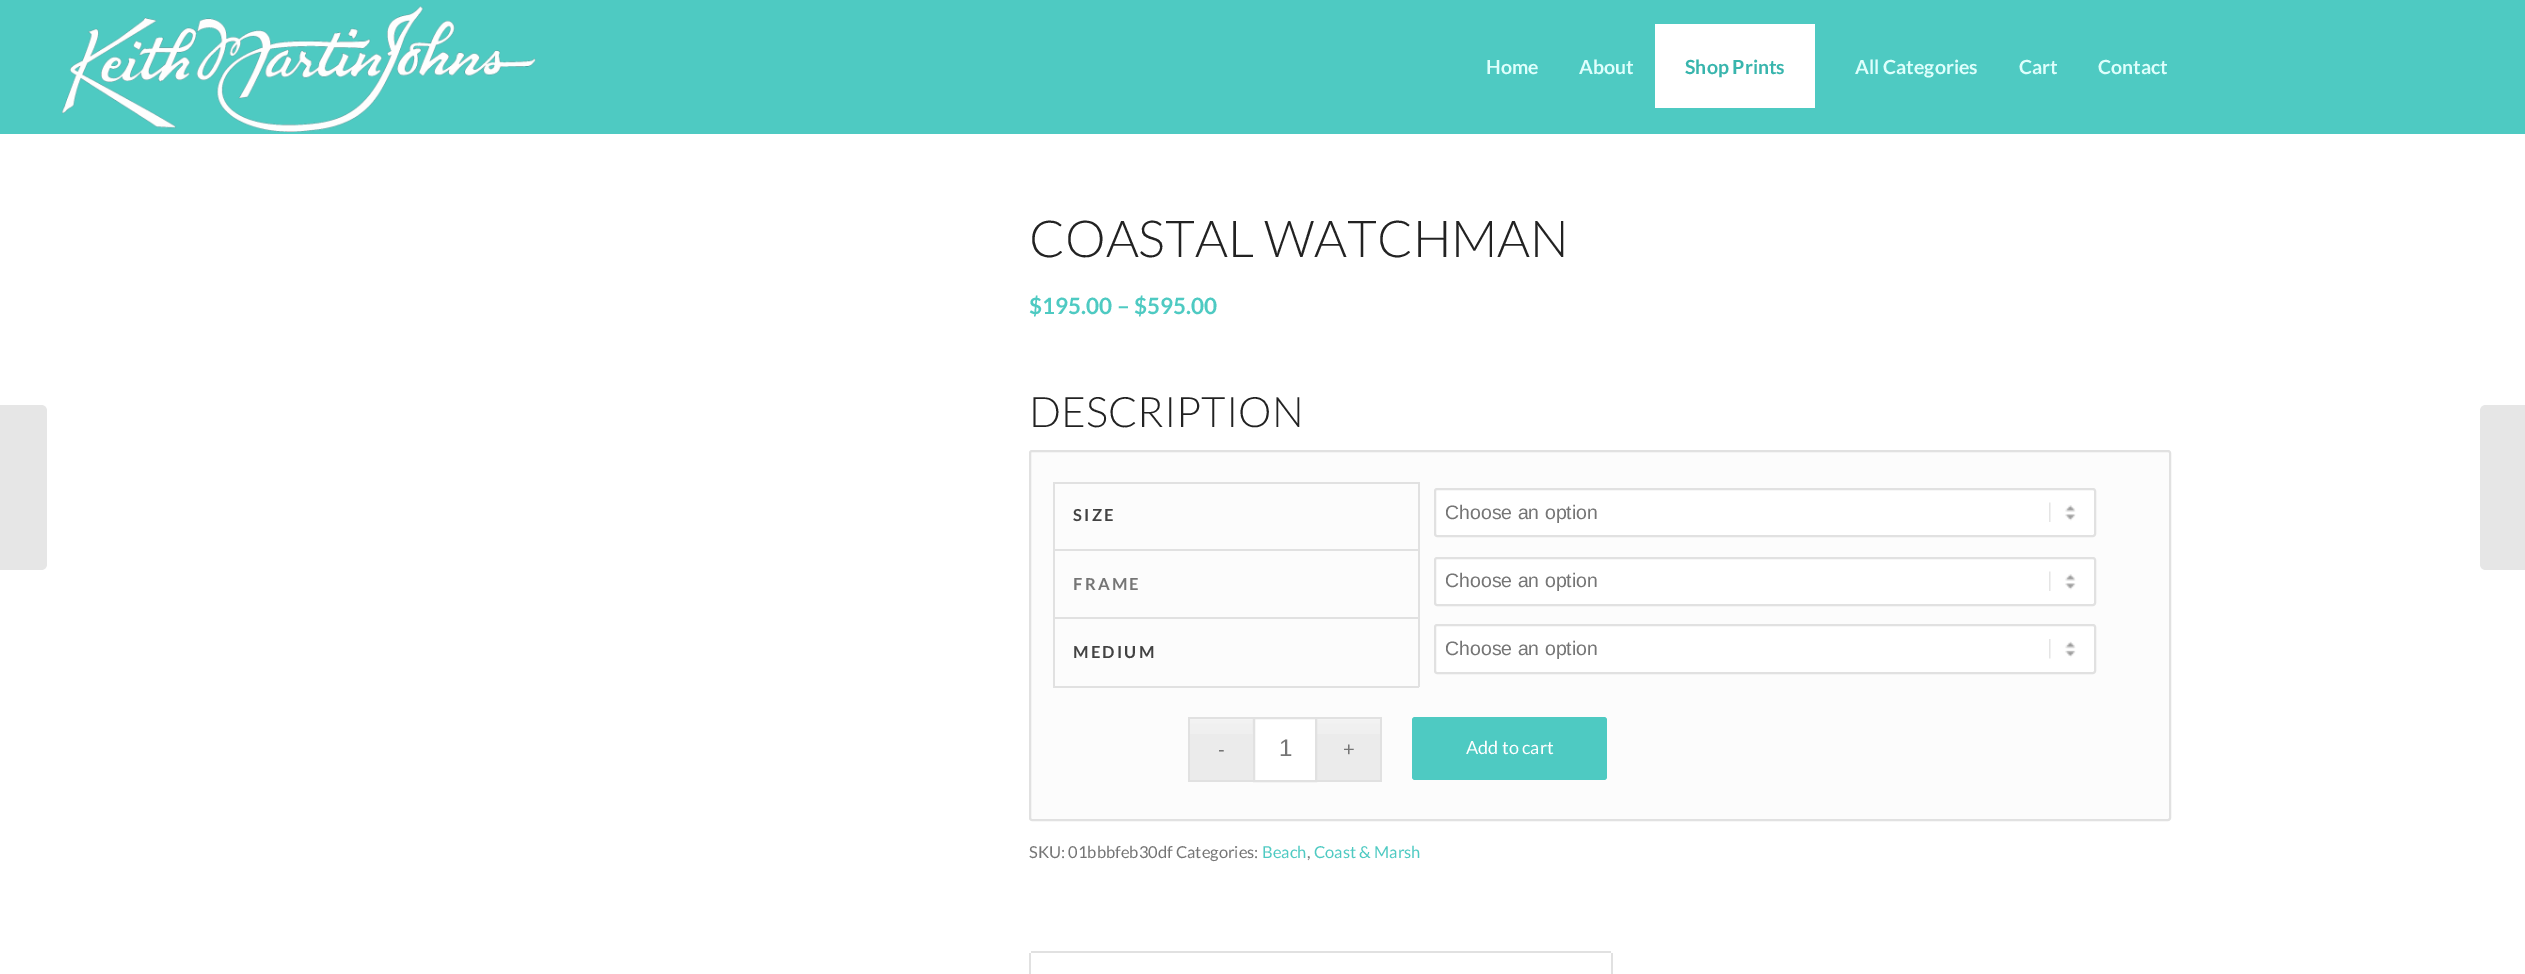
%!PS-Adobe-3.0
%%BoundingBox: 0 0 2525 974
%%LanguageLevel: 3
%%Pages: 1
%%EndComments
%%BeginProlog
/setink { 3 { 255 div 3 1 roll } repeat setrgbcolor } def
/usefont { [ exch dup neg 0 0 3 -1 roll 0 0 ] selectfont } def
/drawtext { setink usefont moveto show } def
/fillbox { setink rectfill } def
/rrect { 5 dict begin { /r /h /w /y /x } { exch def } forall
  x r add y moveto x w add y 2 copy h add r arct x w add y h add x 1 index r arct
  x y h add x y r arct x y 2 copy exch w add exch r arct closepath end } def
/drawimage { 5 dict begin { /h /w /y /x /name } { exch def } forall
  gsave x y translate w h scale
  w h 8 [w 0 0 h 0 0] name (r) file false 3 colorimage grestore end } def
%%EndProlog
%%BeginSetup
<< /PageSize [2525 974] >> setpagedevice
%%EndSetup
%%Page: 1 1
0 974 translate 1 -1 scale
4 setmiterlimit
0 0 2525 974 255 255 255 fillbox
0 0 2525 134 78 202 194 fillbox
(assets/img1.rgb) 62 5 474 127 drawimage
(Home) 1486 74 /Lato-Bold 19.5 222 255 252 drawtext
(About) 1579 74 /Lato-Bold 19.5 222 255 252 drawtext
1655 24 160 84 255 255 255 fillbox
(Shop Prints) 1685 74 /Lato-Bold 19.5 56 181 173 drawtext
(All Categories) 1855 74 /Lato-Bold 19.5 222 255 252 drawtext
(Cart) 2019 74 /Lato-Bold 19.5 222 255 252 drawtext
(Contact) 2098 74 /Lato-Bold 19.5 222 255 252 drawtext
230 230 230 setink
0 405 moveto 41 405 lineto 44.5 405 47 407.5 47 411 curveto 47 564 lineto 47 567.5 44.5 570 41 570 curveto 0 570 lineto closepath fill
(COASTAL WATCHMAN) 1029 257 /Lato-Light 51 34 34 34 drawtext
($195.00 – $595.00) 1029 314 /Lato-Bold 22.5 78 202 194 drawtext
(DESCRIPTION) 1029 427 /Lato-Light 42 34 34 34 drawtext
252 252 252 setink
1030 451 1140 369 2 rrect gsave fill grestore
225 225 225 setink
2 setlinewidth
stroke
1053 482 366 2 225 225 225 fillbox
1418 549 2 138 225 225 225 fillbox
1418 482 2 69 225 225 225 fillbox
1053 686 366 2 225 225 225 fillbox
1053 617 2 70 225 225 225 fillbox
1053 617 366 2 225 225 225 fillbox
1053 549 2 69 225 225 225 fillbox
1053 549 366 2 225 225 225 fillbox
1053 482 2 69 225 225 225 fillbox
/Lato-Bold 16.5 usefont
66 66 66 setink
1073 521 moveto 2.25 0 (SIZE) ashow
255 255 255 setink
1434 488 662 49 3 rrect fill
(assets/img2.rgb) 2049 502 27 20 drawimage
225 225 225 setink
1435 489 660 47 2 rrect stroke
(Choose an option) 1445 519 /LiberationSans-Regular 19.5 117 117 117 drawtext
/Lato-Bold 16.5 usefont
1073 590 moveto 2.25 0 (FRAME) ashow
255 255 255 setink
1434 557 662 49 3 rrect fill
(assets/img2.rgb) 2049 571 27 20 drawimage
225 225 225 setink
1435 558 660 47 2 rrect stroke
(Choose an option) 1445 587 /LiberationSans-Regular 19.5 117 117 117 drawtext
/Lato-Bold 16.5 usefont
66 66 66 setink
1073 658 moveto 2.25 0 (MEDIUM) ashow
255 255 255 setink
1434 624 662 50 3 rrect fill
(assets/img3.rgb) 2049 639 27 20 drawimage
225 225 225 setink
1435 625 660 48 2 rrect stroke
(Choose an option) 1445 655 /LiberationSans-Regular 19.5 117 117 117 drawtext
1190 719 63 61 235 235 235 fillbox
(assets/img4.rgb) 1190 719 63 15 drawimage
1317 719 63 61 235 235 235 fillbox
(assets/img5.rgb) 1317 719 63 15 drawimage
(-) 1218 756 /LiberationSans-Regular 20 117 117 117 drawtext
1188 717 65 2 225 225 225 fillbox
1188 780 65 2 225 225 225 fillbox
1188 717 2 65 225 225 225 fillbox
255 255 255 setink
1254 718 moveto 1316 718 lineto 1316 781 lineto 1254 781 lineto closepath gsave fill grestore
225 225 225 setink
stroke
(1) 1279 756 /LiberationSans-Regular 24 117 117 117 drawtext
(+) 1343 756 /LiberationSans-Regular 20 117 117 117 drawtext
1317 717 65 2 225 225 225 fillbox
1380 717 2 65 225 225 225 fillbox
1317 780 65 2 225 225 225 fillbox
78 202 194 setink
1412 717 195 63 3 rrect fill
(Add to cart) 1466 754 /Lato-Regular 18 255 255 255 drawtext
(SKU: 01bbbfeb30df Categories:) 1029 858 /Lato-Regular 16.5 117 117 117 drawtext
(Beach) 1262 858 /Lato-Regular 16.5 78 202 194 drawtext
(,) 1307 858 /Lato-Regular 16.5 117 117 117 drawtext
(Coast & Marsh) 1314 858 /Lato-Regular 16.5 78 202 194 drawtext
1031 951 580 2 225 225 225 fillbox
1611 953 2 21 225 225 225 fillbox
1029 953 2 21 225 225 225 fillbox
230 230 230 setink
2486 405 moveto 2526 405 lineto 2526 570 lineto 2486 570 lineto 2482.5 570 2480 567.5 2480 564 curveto 2480 411 lineto 2480 407.5 2482.5 405 2486 405 curveto closepath fill
showpage
%%EOF
